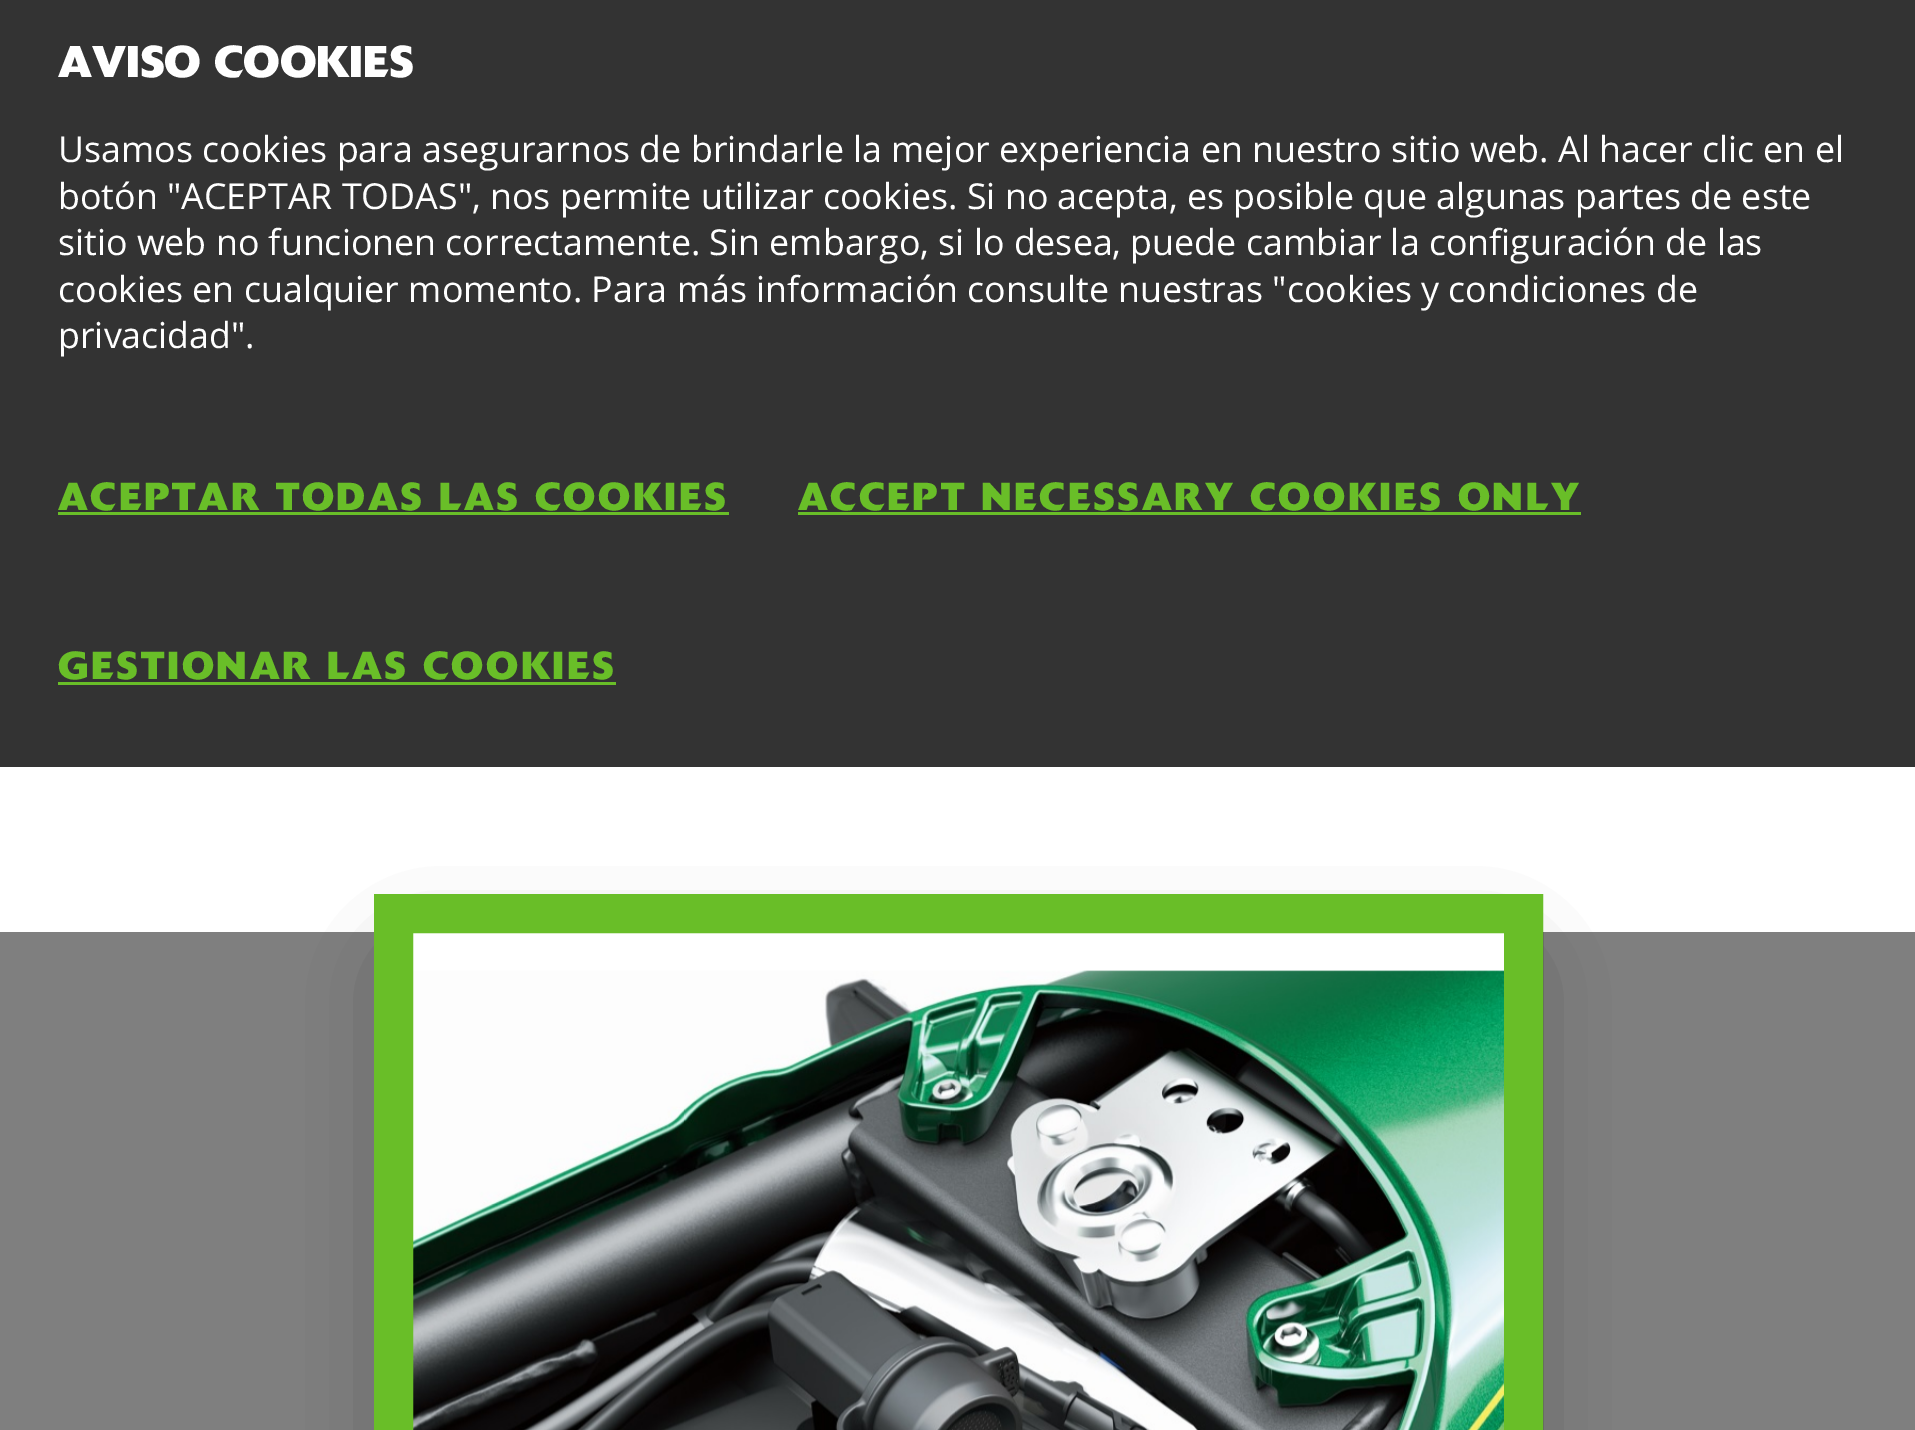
%!PS-Adobe-3.0
%%BoundingBox: 0 0 1915 1430
%%LanguageLevel: 3
%%Pages: 1
%%EndComments
%%BeginProlog
/setink { 3 { 255 div 3 1 roll } repeat setrgbcolor } def
/usefont { [ exch dup neg 0 0 3 -1 roll 0 0 ] selectfont } def
/drawtext { setink usefont moveto show } def
/fillbox { setink rectfill } def
/setalpha { dup .setfillconstantalpha .setstrokeconstantalpha } def
/rrect { 5 dict begin { /r /h /w /y /x } { exch def } forall
  x r add y moveto x w add y 2 copy h add r arct x w add y h add x 1 index r arct
  x y h add x y r arct x y 2 copy exch w add exch r arct closepath end } def
/softshadow { 12 dict begin { /a /b /q /h /w /y /x } { exch def } forall gsave /was 0 def
  9 -2 -9 { dup b mul 4 div /e exch def 1 sub .425 mul 2.718 exch exp 1 add a .99 .min exch div /now exch def
    1 1 now sub 1 was sub div sub setalpha /was now def
    w h .min e 2 mul add 0 gt { x e sub y e sub w e 2 mul add h e 2 mul add
      q e add b .6 mul add w h .min 2 div e add .min 0 .max rrect fill } if } for grestore end } def
/drawimage { 5 dict begin { /h /w /y /x /name } { exch def } forall
  gsave x y translate w h scale
  w h 8 [w 0 0 h 0 0] name (r) file false 3 colorimage grestore end } def
%%EndProlog
%%BeginSetup
<< /PageSize [1915 1430] /PageUsesTransparency true >> setpagedevice
%%EndSetup
%%Page: 1 1
0 .pushpdf14devicefilter
0 1430 translate 1 -1 scale
4 setmiterlimit
0 0 1915 1430 255 255 255 fillbox
0 0 1915 767 51 51 51 fillbox
(AVISO COOKIES) 58 77 /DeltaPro-Bold 44 255 255 255 drawtext
(Usamos cookies para asegurarnos de brindarle la mejor experiencia en nuestro sitio web. Al hacer clic en el) 58 162 /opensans-Regular 35.75 255 255 255 drawtext
(botón "ACEPTAR TODAS", nos permite utilizar cookies. Si no acepta, es posible que algunas partes de este) 58 209 /opensans-Regular 35.75 255 255 255 drawtext
(sitio web no funcionen correctamente. Sin embargo, si lo desea, puede cambiar la configuración de las) 58 255 /opensans-Regular 35.75 255 255 255 drawtext
(cookies en cualquier momento. Para más información consulte nuestras "cookies y condiciones de) 58 302 /opensans-Regular 35.75 255 255 255 drawtext
(privacidad".) 58 348 /opensans-Regular 35.75 255 255 255 drawtext
/DeltaPro-Bold 38.5 usefont
105 190 40 setink
58 510 moveto 2.75 0 (ACEPTAR TODAS LAS COOKIES) ashow
58 512 671 3 105 190 40 fillbox
798 510 moveto 2.75 0 (ACCEPT NECESSARY COOKIES ONLY) ashow
798 512 783 3 105 190 40 fillbox
58 679 moveto 2.75 0 (GESTIONAR LAS COOKIES) ashow
58 682 558 3 105 190 40 fillbox
gsave
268 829 moveto 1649 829 lineto 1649 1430 lineto 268 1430 lineto closepath 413 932 moveto 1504 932 lineto 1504 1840 lineto 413 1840 lineto closepath eoclip newpath
50 50 50 setink
413 974 1091 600 0 48 0.57 softshadow
grestore
(assets/img1.rgb) 413 970 1091 460 drawimage
39 setlinewidth
393.5 913.5 1130 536 rectstroke
0.5 setalpha
0 932 374 498 0 0 0 fillbox
1543 932 372 498 0 0 0 fillbox
.poppdf14devicefilter showpage
%%EOF
